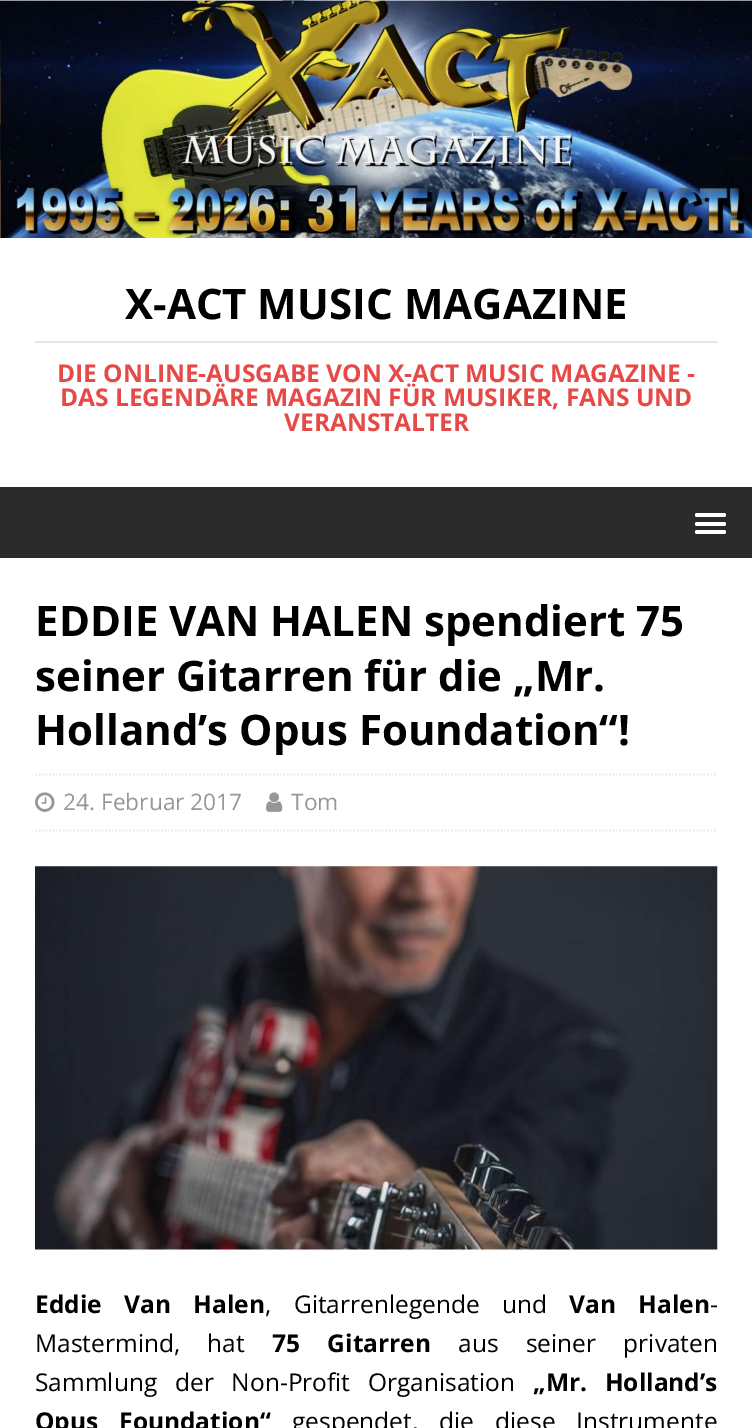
%!PS-Adobe-3.0
%%BoundingBox: 0 0 752 1428
%%LanguageLevel: 3
%%Pages: 1
%%EndComments
%%BeginProlog
/setink { 3 { 255 div 3 1 roll } repeat setrgbcolor } def
/usefont { [ exch dup neg 0 0 3 -1 roll 0 0 ] selectfont } def
/drawtext { setink usefont moveto show } def
/fillbox { setink rectfill } def
/rrect { 5 dict begin { /r /h /w /y /x } { exch def } forall
  x r add y moveto x w add y 2 copy h add r arct x w add y h add x 1 index r arct
  x y h add x y r arct x y 2 copy exch w add exch r arct closepath end } def
/drawimage { 5 dict begin { /h /w /y /x /name } { exch def } forall
  gsave x y translate w h scale
  w h 8 [w 0 0 h 0 0] name (r) file false 3 colorimage grestore end } def
%%EndProlog
%%BeginSetup
<< /PageSize [752 1428] >> setpagedevice
%%EndSetup
%%Page: 1 1
0 1428 translate 1 -1 scale
4 setmiterlimit
0 0 752 1428 255 255 255 fillbox
(assets/img1.rgb) 0 0 752 238 drawimage
(X-ACT MUSIC MAGAZINE) 125 319 /OpenSans-Bold 42 0 0 0 drawtext
35 341 683 2 229 229 229 fillbox
(DIE ONLINE-AUSGABE VON X-ACT MUSIC MAGAZINE -) 57 382 /OpenSans-Bold 24.5 230 73 70 drawtext
(DAS LEGENDÄRE MAGAZIN FÜR MUSIKER, FANS UND) 60 406 /OpenSans-Bold 24.5 230 73 70 drawtext
(VERANSTALTER) 284 431 /OpenSans-Bold 24.5 230 73 70 drawtext
0 487 752 71 42 42 42 fillbox
255 255 255 setink
695 513 31 4 2 rrect fill
695 522 31 4 2 rrect fill
695 530 31 4 2 rrect fill
(EDDIE VAN HALEN spendiert 75) 35 636 /OpenSans-Bold 42 0 0 0 drawtext
(seiner Gitarren für die „Mr.) 35 691 /OpenSans-Bold 42 0 0 0 drawtext
(Holland’s Opus Foundation“!) 35 745 /OpenSans-Bold 42 0 0 0 drawtext
235 235 235 setink
1.8 setlinewidth
[1.75 1.75] 0 setdash
35 774.5 moveto 717.5 774.5 lineto stroke
35 830.5 moveto 717.5 830.5 lineto stroke
(assets/img2.rgb) 35 792 20 20 drawimage
(24. Februar 2017) 63 810 /OpenSans-Regular 22.75 151 151 151 drawtext
(assets/img3.rgb) 266 792 17 20 drawimage
(Tom) 291 810 /OpenSans-Regular 22.75 151 151 151 drawtext
(assets/img4.rgb) 35 866 683 384 drawimage
/OpenSans-Bold 24.5 usefont
0 0 0 setink
35 1313 moveto 16 0 32 (Eddie Van Halen) widthshow
/OpenSans-Regular 24.5 usefont
265 1313 moveto 16 0 32 (, Gitarrenlegende und) widthshow
/OpenSans-Bold 24.5 usefont
569 1313 moveto 16 0 32 (Van Halen) widthshow
(-) 710 1313 /OpenSans-Regular 24.5 0 0 0 drawtext
35 1352 moveto 21 0 32 (Mastermind, hat) widthshow
/OpenSans-Bold 24.5 usefont
272 1352 moveto 21 0 32 (75 Gitarren) widthshow
/OpenSans-Regular 24.5 usefont
458 1352 moveto 21 0 32 (aus seiner privaten) widthshow
35 1391 moveto 11.5 0 32 (Sammlung der Non-Profit Organisation) widthshow
/OpenSans-Bold 24.5 usefont
533 1391 moveto 11.5 0 32 („Mr. Holland’s) widthshow
35 1430 moveto 14.5 0 32 (Opus Foundation“) widthshow
/OpenSans-Regular 24.5 usefont
292 1430 moveto 14.5 0 32 (gespendet, die diese Instrumente) widthshow
showpage
%%EOF
